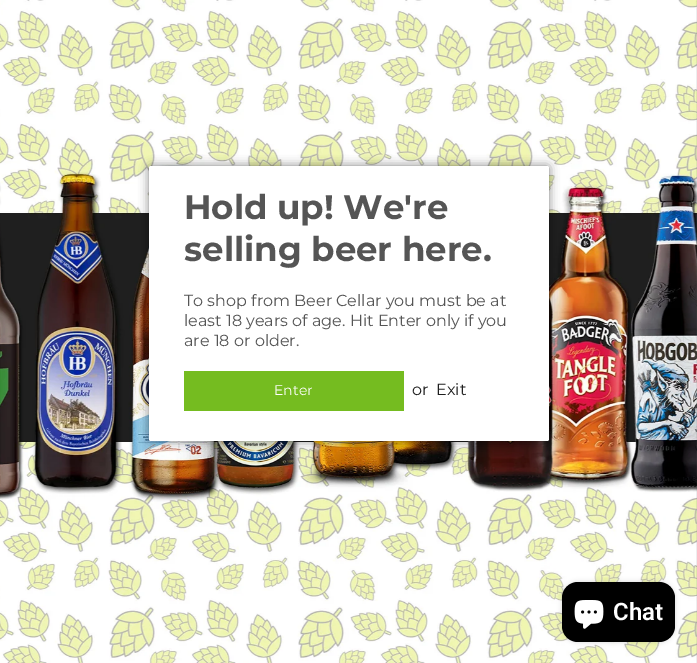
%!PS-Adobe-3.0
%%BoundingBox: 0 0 697 663
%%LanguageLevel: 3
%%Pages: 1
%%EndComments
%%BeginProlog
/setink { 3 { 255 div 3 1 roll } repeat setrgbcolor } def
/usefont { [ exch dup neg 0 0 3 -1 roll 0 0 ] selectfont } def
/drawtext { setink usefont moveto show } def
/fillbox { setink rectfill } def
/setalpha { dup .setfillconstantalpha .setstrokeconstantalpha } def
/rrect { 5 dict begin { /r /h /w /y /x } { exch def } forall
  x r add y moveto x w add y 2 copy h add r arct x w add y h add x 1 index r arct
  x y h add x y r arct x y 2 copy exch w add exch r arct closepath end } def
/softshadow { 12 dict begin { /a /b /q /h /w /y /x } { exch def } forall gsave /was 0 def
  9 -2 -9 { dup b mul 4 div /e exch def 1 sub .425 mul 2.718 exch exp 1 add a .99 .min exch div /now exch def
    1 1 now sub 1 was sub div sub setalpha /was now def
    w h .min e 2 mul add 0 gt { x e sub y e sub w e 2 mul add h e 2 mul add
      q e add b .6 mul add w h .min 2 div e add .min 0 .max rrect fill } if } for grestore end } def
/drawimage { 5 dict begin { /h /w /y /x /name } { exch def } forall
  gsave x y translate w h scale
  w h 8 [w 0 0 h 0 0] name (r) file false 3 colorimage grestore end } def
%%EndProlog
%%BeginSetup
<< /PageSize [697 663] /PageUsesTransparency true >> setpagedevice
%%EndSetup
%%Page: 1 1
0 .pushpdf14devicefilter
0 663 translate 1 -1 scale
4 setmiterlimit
0 0 697 663 255 255 255 fillbox
(assets/img1.rgb) 0 0 697 663 drawimage
0 0 0 setink
149 166 400 275 2 5 0.5 softshadow
255 255 255 setink
149 166 400 275 2 rrect fill
(Hold up! We're) 184 219 /Montserrat-Bold 34 85 85 85 drawtext
(selling beer here.) 184 261 /Montserrat-Bold 34 85 85 85 drawtext
(To shop from Beer Cellar you must be at) 184 306 /Montserrat-Regular 16 85 85 85 drawtext
(least 18 years of age. Hit Enter only if you) 184 326 /Montserrat-Regular 16 85 85 85 drawtext
(are 18 or older.) 184 346 /Montserrat-Regular 16 85 85 85 drawtext
184 371 220 40 117 188 32 fillbox
(Enter) 274 395 /Montserrat-Regular 14 255 255 255 drawtext
(or) 412 395 /Montserrat-Regular 16 31 31 31 drawtext
(Exit) 436 395 /Montserrat-Regular 16 31 31 31 drawtext
0 0 0 setink
562 582 113 60 16 2.5 0.15 softshadow
562 582 113 60 16 rrect fill
(assets/img2.rgb) 574 600 30 29 drawimage
(Chat) 613 620 /Roboto-SemiBold 24 255 255 255 drawtext
.poppdf14devicefilter showpage
%%EOF
